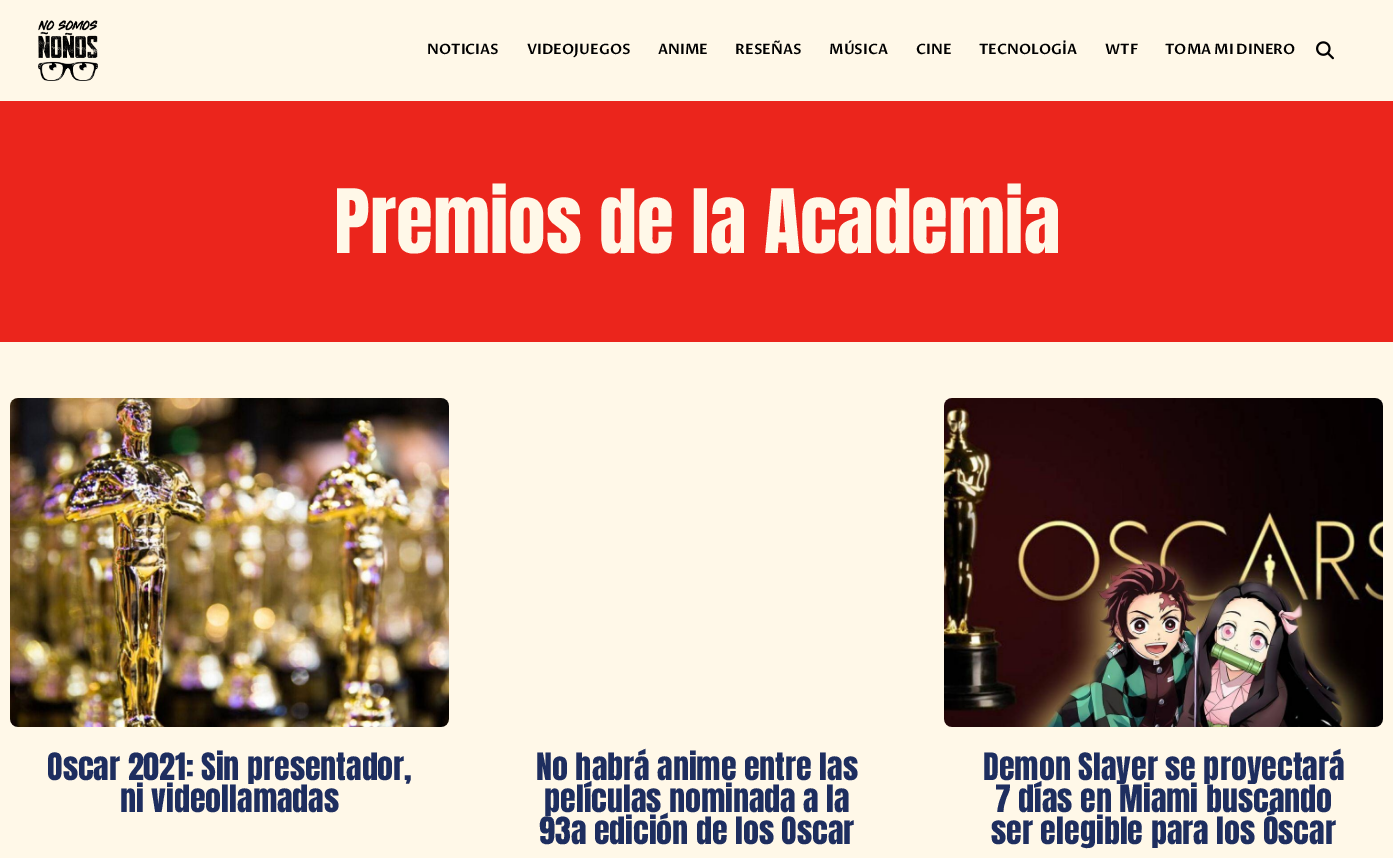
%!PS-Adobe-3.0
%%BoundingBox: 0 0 1393 858
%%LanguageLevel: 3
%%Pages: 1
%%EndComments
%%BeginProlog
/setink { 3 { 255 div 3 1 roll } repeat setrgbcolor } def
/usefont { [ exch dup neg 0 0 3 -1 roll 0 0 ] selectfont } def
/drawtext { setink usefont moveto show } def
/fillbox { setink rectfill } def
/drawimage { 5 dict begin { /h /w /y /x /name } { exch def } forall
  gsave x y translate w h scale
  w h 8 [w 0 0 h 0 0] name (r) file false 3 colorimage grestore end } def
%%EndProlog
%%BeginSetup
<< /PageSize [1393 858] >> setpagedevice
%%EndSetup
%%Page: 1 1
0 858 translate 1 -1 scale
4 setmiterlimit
0 0 1393 858 255 248 232 fillbox
(assets/img1.rgb) 38 20 60 61 drawimage
(NOTICIAS) 427 54 /ProzaLibre-SemiBold 14.25 0 0 0 drawtext
(VIDEOJUEGOS) 527 54 /ProzaLibre-SemiBold 14.25 0 0 0 drawtext
(ANIME) 658 54 /ProzaLibre-SemiBold 14.25 0 0 0 drawtext
(RESEÑAS) 735 54 /ProzaLibre-SemiBold 14.25 0 0 0 drawtext
(MÚSICA) 829 54 /ProzaLibre-SemiBold 14.25 0 0 0 drawtext
(CINE) 916 54 /ProzaLibre-SemiBold 14.25 0 0 0 drawtext
(TECNOLOGÍA) 979 54 /ProzaLibre-SemiBold 14.25 0 0 0 drawtext
(WTF) 1105 54 /ProzaLibre-SemiBold 14.25 0 0 0 drawtext
(TOMA MI DINERO) 1165 54 /ProzaLibre-SemiBold 14.25 0 0 0 drawtext
(assets/img2.rgb) 1316 41 18 19 drawimage
0 101 1393 241 235 37 28 fillbox
(Premios de la Academia) 334 253 /Anton-Regular 75.4 255 248 232 drawtext
(assets/img3.rgb) 10 398 439 329 drawimage
(Oscar 2021: Sin presentador,) 47 780 /Anton-Regular 32 30 46 95 drawtext
(ni videollamadas) 120 812 /Anton-Regular 32 30 46 95 drawtext
(No habrá anime entre las) 536 780 /Anton-Regular 32 30 46 95 drawtext
(películas nominada a la) 544 812 /Anton-Regular 32 30 46 95 drawtext
(93a edición de los Oscar) 539 844 /Anton-Regular 32 30 46 95 drawtext
(assets/img4.rgb) 944 398 439 329 drawimage
(Demon Slayer se proyectará) 983 780 /Anton-Regular 32 30 46 95 drawtext
(7 días en Miami buscando) 995 812 /Anton-Regular 32 30 46 95 drawtext
(ser elegible para los Óscar) 991 844 /Anton-Regular 32 30 46 95 drawtext
showpage
%%EOF
